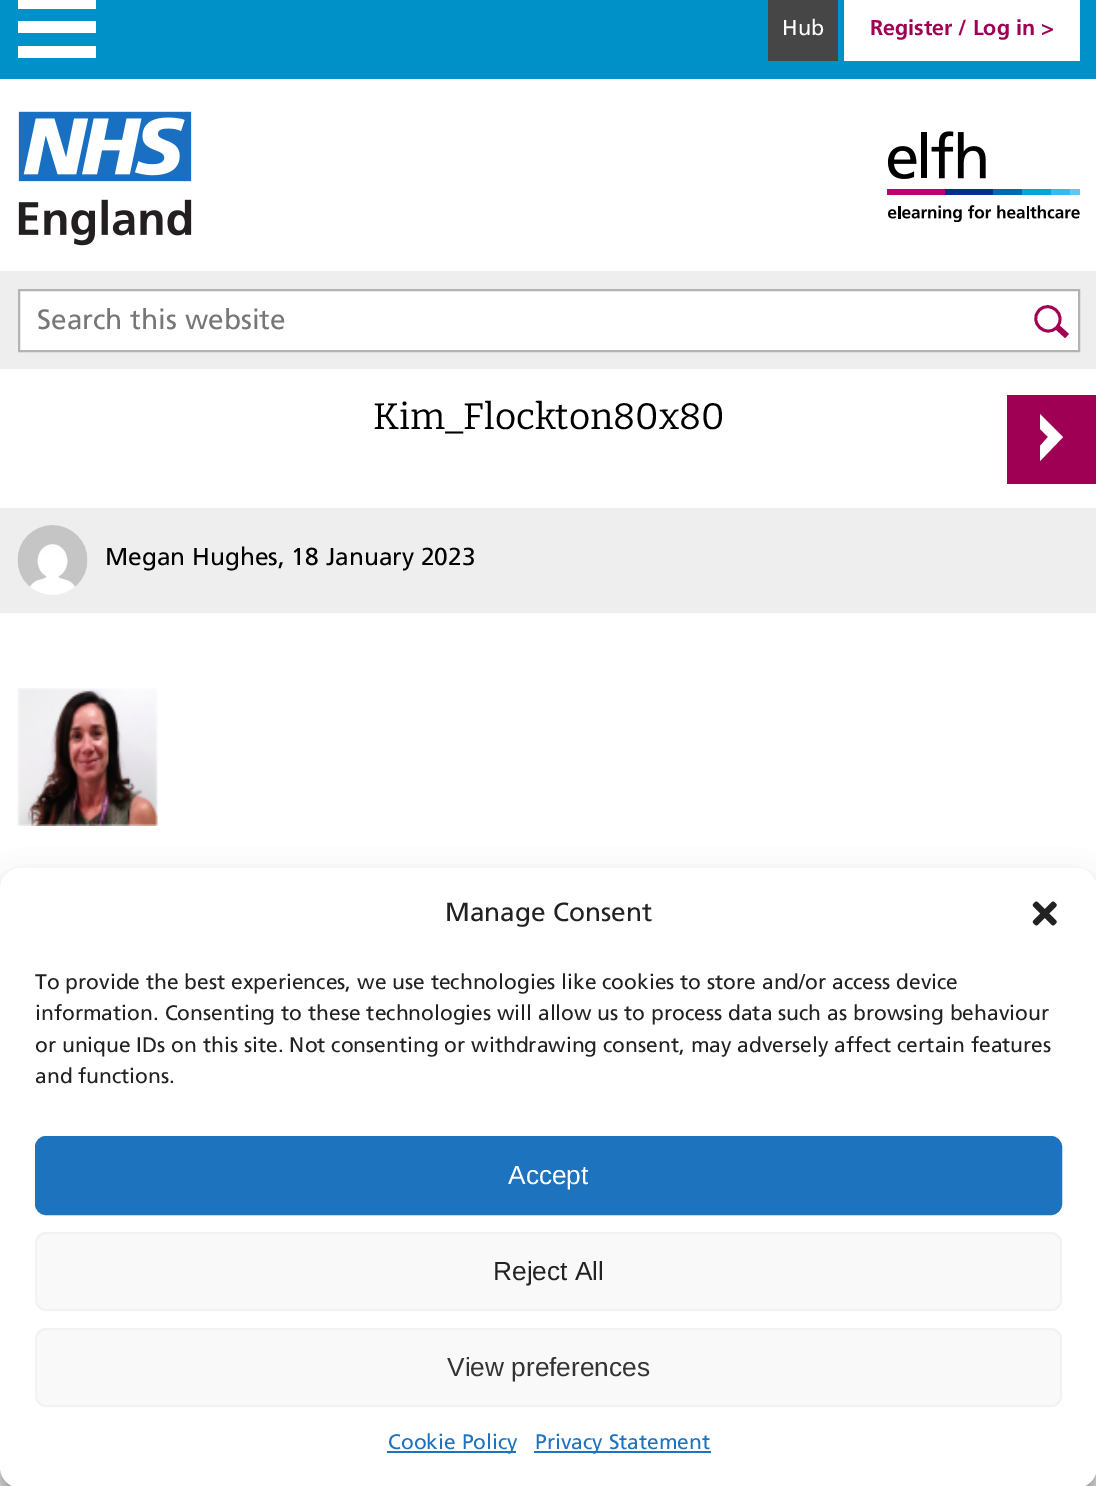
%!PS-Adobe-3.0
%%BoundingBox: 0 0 1096 1486
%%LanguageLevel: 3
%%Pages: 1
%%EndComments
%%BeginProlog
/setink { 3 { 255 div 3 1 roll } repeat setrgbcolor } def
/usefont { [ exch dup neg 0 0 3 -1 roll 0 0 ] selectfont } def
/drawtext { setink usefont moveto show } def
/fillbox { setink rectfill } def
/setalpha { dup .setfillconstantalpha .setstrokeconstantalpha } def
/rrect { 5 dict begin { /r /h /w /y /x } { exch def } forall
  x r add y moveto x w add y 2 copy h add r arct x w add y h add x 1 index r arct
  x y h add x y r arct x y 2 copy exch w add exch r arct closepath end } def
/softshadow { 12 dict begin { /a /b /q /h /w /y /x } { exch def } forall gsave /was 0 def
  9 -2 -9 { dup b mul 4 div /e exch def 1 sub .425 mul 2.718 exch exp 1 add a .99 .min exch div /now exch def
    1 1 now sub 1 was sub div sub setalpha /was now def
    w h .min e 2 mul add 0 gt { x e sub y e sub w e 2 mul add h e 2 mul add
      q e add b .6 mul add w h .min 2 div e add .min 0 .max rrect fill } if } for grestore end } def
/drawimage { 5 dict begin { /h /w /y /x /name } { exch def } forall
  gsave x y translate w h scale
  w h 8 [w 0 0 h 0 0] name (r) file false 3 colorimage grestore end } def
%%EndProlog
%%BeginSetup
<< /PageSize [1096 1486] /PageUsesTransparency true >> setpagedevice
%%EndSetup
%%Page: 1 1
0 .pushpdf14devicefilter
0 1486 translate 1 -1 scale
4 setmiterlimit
0 0 1096 1486 255 255 255 fillbox
0 0 1096 79 0 145 201 fillbox
18 0 78 9 255 255 255 fillbox
18 21 78 12 255 255 255 fillbox
18 46 78 12 255 255 255 fillbox
768 0 70 61 70 70 71 fillbox
(Hub) 782 35 /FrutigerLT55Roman-Regular 21.5 255 255 255 drawtext
844 0 236 61 255 255 255 fillbox
(Register / Log in >) 870 35 /Frutiger-Bold 21.5 160 0 84 drawtext
(assets/img1.rgb) 18 111 174 135 drawimage
(assets/img2.rgb) 887 131 193 91 drawimage
0 271 1096 98 238 238 239 fillbox
255 255 255 setink
19 290 moveto 1079 290 lineto 1079 351 lineto 19 351 lineto closepath gsave fill grestore
179 179 179 setink
2 setlinewidth
stroke
(Search this website) 37 329 /FrutigerLT55Roman-Regular 28 119 119 119 drawtext
160 0 84 setink
2.8 setlinewidth
1039 310.5 moveto 1049.5 299 1067.5 315 1057 327 curveto 1046.5 339 1028 322.5 1039 310.5 curveto closepath stroke
5.6 setlinewidth
1056.5 326.5 moveto 1067 336 lineto stroke
(Kim_Flockton80x80) 373 429 /Bitter-Regular 36.75 0 0 0 drawtext
1007 395 89 89 160 0 84 fillbox
255 255 255 setink
1048 437 moveto 1040 429 lineto 1040 414 lineto 1063 437 lineto 1040 461 lineto 1040 446 lineto closepath fill
0 508 1096 105 238 238 239 fillbox
(assets/img3.rgb) 17 525 71 70 drawimage
(Megan Hughes, 18 January 2023) 105 565 /FrutigerLT55Roman-Regular 24.5 0 0 0 drawtext
(assets/img4.rgb) 17 688 141 138 drawimage
0 1467 1096 19 238 238 239 fillbox
0 0 0 setink
0 879 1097 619 21 5 0.23 softshadow
0 886 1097 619 21 17.5 0.19 softshadow
255 255 255 setink
0 868 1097 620 21 rrect fill
(Manage Consent) 445 921 /FrutigerLT55Roman-Regular 26.25 34 34 34 drawtext
(assets/img5.rgb) 1032 901 25 25 drawimage
(To provide the best experiences, we use technologies like cookies to store and/or access device) 35 989 /FrutigerLT55Roman-Regular 21 34 34 34 drawtext
(information. Consenting to these technologies will allow us to process data such as browsing behaviour) 35 1020 /FrutigerLT55Roman-Regular 21 34 34 34 drawtext
(or unique IDs on this site. Not consenting or withdrawing consent, may adversely affect certain features) 35 1052 /FrutigerLT55Roman-Regular 21 34 34 34 drawtext
(and functions.) 35 1083 /FrutigerLT55Roman-Regular 21 34 34 34 drawtext
30 115 190 setink
36 1137 1025 77 10 rrect gsave fill grestore
2 setlinewidth
stroke
(Accept) 508 1184 /LiberationSans-Regular 26.25 255 255 255 drawtext
249 249 249 setink
36 1233 1025 77 10 rrect gsave fill grestore
242 242 242 setink
stroke
(Reject All) 493 1280 /LiberationSans-Regular 26.25 34 34 34 drawtext
249 249 249 setink
36 1329 1025 77 10 rrect gsave fill grestore
242 242 242 setink
stroke
(View preferences) 447 1376 /LiberationSans-Regular 26.25 51 51 51 drawtext
387 1451 129 2 30 115 190 fillbox
(Cookie Policy) 388 1449 /FrutigerLT55Roman-Regular 21 30 115 190 drawtext
534 1451 177 2 30 115 190 fillbox
(Privacy Statement) 535 1449 /FrutigerLT55Roman-Regular 21 30 115 190 drawtext
.poppdf14devicefilter showpage
%%EOF
